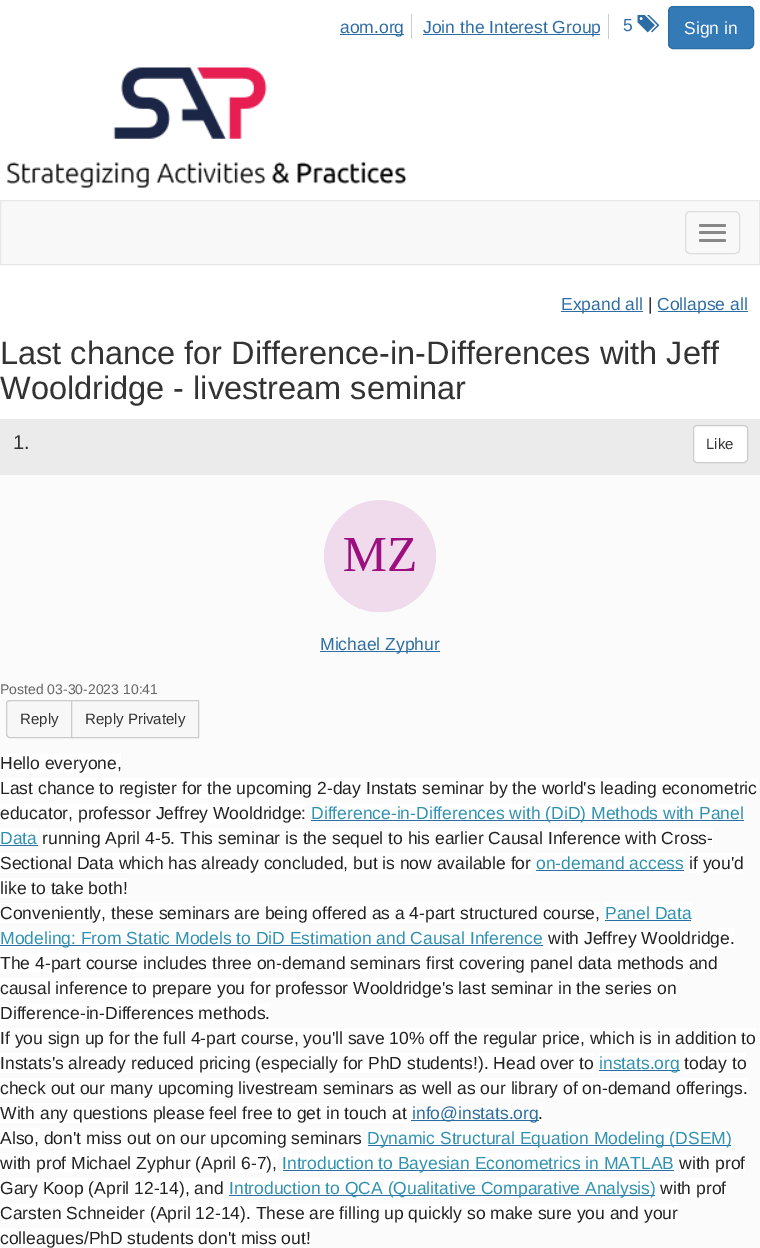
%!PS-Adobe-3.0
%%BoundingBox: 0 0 760 1248
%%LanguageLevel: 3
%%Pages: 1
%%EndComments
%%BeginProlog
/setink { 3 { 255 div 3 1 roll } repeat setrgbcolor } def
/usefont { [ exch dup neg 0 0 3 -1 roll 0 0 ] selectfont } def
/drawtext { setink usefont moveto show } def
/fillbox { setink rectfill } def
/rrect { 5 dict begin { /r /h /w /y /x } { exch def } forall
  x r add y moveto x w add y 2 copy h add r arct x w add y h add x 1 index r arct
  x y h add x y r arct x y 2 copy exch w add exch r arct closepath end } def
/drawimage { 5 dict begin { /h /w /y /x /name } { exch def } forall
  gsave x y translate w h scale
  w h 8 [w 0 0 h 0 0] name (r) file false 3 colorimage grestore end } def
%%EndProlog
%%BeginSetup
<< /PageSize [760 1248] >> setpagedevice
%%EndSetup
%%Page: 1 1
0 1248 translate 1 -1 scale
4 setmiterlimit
0 0 760 1248 255 255 255 fillbox
411 14 1 25 204 204 204 fillbox
340 34 64 1 46 109 164 fillbox
(aom.org) 340 33 /LiberationSans-Regular 17.5 46 109 164 drawtext
608 14 1 25 204 204 204 fillbox
423 34 177 1 46 109 164 fillbox
(Join the Interest Group) 423 33 /LiberationSans-Regular 17.5 46 109 164 drawtext
(5) 623 31 /LiberationSans-Regular 17.5 46 109 164 drawtext
(assets/img1.rgb) 637 15 23 18 drawimage
51 122 183 setink
668.5 6.5 85 42 4.5 rrect gsave fill grestore
46 109 164 setink
stroke
(Sign in) 684 34 /LiberationSans-Regular 17.5 255 255 255 drawtext
(assets/img2.rgb) 6 67 401 121 drawimage
248 248 248 setink
0.5 200.5 moveto 759.5 200.5 lineto 759.5 264.5 lineto 0.5 264.5 lineto closepath gsave fill grestore
231 231 231 setink
stroke
221 221 221 setink
685.5 211.5 54 42 4.5 rrect stroke
136 136 136 setink
699 224 27 3 1.5 rrect fill
699 231 27 3 1.5 rrect fill
699 239 27 3 1.5 rrect fill
561 311 82 1 46 109 164 fillbox
(Expand all) 561 310 /LiberationSans-Regular 17.5 46 109 164 drawtext
(|) 648 310 /LiberationSans-Regular 17.5 51 51 51 drawtext
658 311 90 1 46 109 164 fillbox
(Collapse all) 657 310 /LiberationSans-Regular 17.5 46 109 164 drawtext
(Last chance for Difference-in-Differences with Jeff) 0 364 /LiberationSans-Regular 32.5 51 51 51 drawtext
(Wooldridge - livestream seminar) 0 399 /LiberationSans-Regular 32.5 51 51 51 drawtext
0 475 760 773 251 251 251 fillbox
0 419 760 56 235 235 235 fillbox
(1.) 13 449 /LiberationSans-Regular 20 51 51 51 drawtext
255 255 255 setink
693.5 425.5 54 37 3.5 rrect gsave fill grestore
204 204 204 setink
stroke
(Like) 706 449 /LiberationSans-Regular 15 51 51 51 drawtext
(assets/img3.rgb) 324 500 112 113 drawimage
320 651 120 1 46 109 164 fillbox
(Michael Zyphur) 320 650 /LiberationSans-Regular 17.5 46 109 164 drawtext
(Posted 03-30-2023 10:41) 0 694 /LiberationSans-Regular 14 102 102 102 drawtext
247 247 247 setink
10 700.5 moveto 72.5 700.5 lineto 72.5 737.5 lineto 10 737.5 lineto 8 737.5 6.5 736 6.5 734 curveto 6.5 704 lineto 6.5 702 8 700.5 10 700.5 curveto closepath gsave fill grestore
204 204 204 setink
stroke
(Reply) 20 724 /LiberationSans-Regular 15 51 51 51 drawtext
247 247 247 setink
71.5 700.5 moveto 198.5 700.5 lineto 198.5 737.5 lineto 71.5 737.5 lineto closepath gsave fill grestore
204 204 204 setink
stroke
(Reply Privately) 85 724 /LiberationSans-Regular 15 51 51 51 drawtext
0 753 121 20 255 255 255 fillbox
(Hello everyone,) 0 769 /LiberationSans-Regular 17.5 34 34 34 drawtext
0 778 758 20 255 255 255 fillbox
(Last chance to register for the upcoming 2-day Instats seminar by the world's leading econometric) 0 794 /LiberationSans-Regular 17.5 34 34 34 drawtext
0 803 306 20 255 255 255 fillbox
(educator, professor Jeffrey Wooldridge:) 0 819 /LiberationSans-Regular 17.5 34 34 34 drawtext
311 803 433 20 255 255 255 fillbox
311 820 433 1 46 109 164 fillbox
(Difference-in-Differences with \(DiD\) Methods with Panel) 311 819 /LiberationSans-Regular 17.5 48 146 177 drawtext
0 828 38 20 255 255 255 fillbox
(Data) 0 844 /LiberationSans-Regular 17.5 48 146 177 drawtext
0 845 38 1 46 109 164 fillbox
41 828 672 20 255 255 255 fillbox
(running April 4-5. This seminar is the sequel to his earlier Causal Inference with Cross-) 42 844 /LiberationSans-Regular 17.5 34 34 34 drawtext
0 853 531 20 255 255 255 fillbox
(Sectional Data which has already concluded, but is now available for) 0 869 /LiberationSans-Regular 17.5 34 34 34 drawtext
536 853 148 20 255 255 255 fillbox
(on-demand access) 536 869 /LiberationSans-Regular 17.5 48 146 177 drawtext
536 870 148 1 46 109 164 fillbox
689 853 55 20 255 255 255 fillbox
(if you'd) 689 869 /LiberationSans-Regular 17.5 34 34 34 drawtext
0 878 128 20 255 255 255 fillbox
(like to take both!) 0 894 /LiberationSans-Regular 17.5 34 34 34 drawtext
0 903 600 20 255 255 255 fillbox
(Conveniently, these seminars are being offered as a 4-part structured course,) 0 919 /LiberationSans-Regular 17.5 34 34 34 drawtext
605 903 86 20 255 255 255 fillbox
(Panel Data) 605 919 /LiberationSans-Regular 17.5 48 146 177 drawtext
605 920 86 1 46 109 164 fillbox
0 928 543 20 255 255 255 fillbox
0 945 543 1 46 109 164 fillbox
(Modeling: From Static Models to DiD Estimation and Causal Inference) 0 944 /LiberationSans-Regular 17.5 48 146 177 drawtext
548 928 187 20 255 255 255 fillbox
(with Jeffrey Wooldridge.) 548 944 /LiberationSans-Regular 17.5 34 34 34 drawtext
0 953 718 20 255 255 255 fillbox
(The 4-part course includes three on-demand seminars first covering panel data methods and) 0 969 /LiberationSans-Regular 17.5 34 34 34 drawtext
0 978 676 20 255 255 255 fillbox
(causal inference to prepare you for professor Wooldridge's last seminar in the series on) 0 994 /LiberationSans-Regular 17.5 34 34 34 drawtext
0 1003 270 20 255 255 255 fillbox
(Difference-in-Differences methods.) 0 1019 /LiberationSans-Regular 17.5 34 34 34 drawtext
0 1028 756 20 255 255 255 fillbox
(If you sign up for the full 4-part course, you'll save 10% off the regular price, which is in addition to) 0 1044 /LiberationSans-Regular 17.5 34 34 34 drawtext
0 1053 594 20 255 255 255 fillbox
(Instats's already reduced pricing \(especially for PhD students!\). Head over to) 0 1069 /LiberationSans-Regular 17.5 34 34 34 drawtext
599 1053 81 20 255 255 255 fillbox
599 1070 81 1 46 109 164 fillbox
(instats.org) 599 1069 /LiberationSans-Regular 17.5 48 146 177 drawtext
684 1053 62 20 255 255 255 fillbox
(today to) 684 1069 /LiberationSans-Regular 17.5 34 34 34 drawtext
0 1078 748 20 255 255 255 fillbox
(check out our many upcoming livestream seminars as well as our library of on-demand offerings.) 0 1094 /LiberationSans-Regular 17.5 34 34 34 drawtext
0 1103 406 20 255 255 255 fillbox
(With any questions please feel free to get in touch at) 0 1119 /LiberationSans-Regular 17.5 34 34 34 drawtext
411 1120 128 1 46 109 164 fillbox
(info@instats.org) 412 1119 /LiberationSans-Regular 17.5 46 109 164 drawtext
539 1103 4 20 255 255 255 fillbox
(.) 538 1119 /LiberationSans-Regular 17.5 34 34 34 drawtext
0 1128 363 20 255 255 255 fillbox
(Also, don't miss out on our upcoming seminars) 0 1144 /LiberationSans-Regular 17.5 34 34 34 drawtext
368 1128 363 20 255 255 255 fillbox
368 1145 363 1 46 109 164 fillbox
(Dynamic Structural Equation Modeling \(DSEM\)) 367 1144 /LiberationSans-Regular 17.5 48 146 177 drawtext
0 1153 278 20 255 255 255 fillbox
(with prof Michael Zyphur \(April 6-7\),) 0 1169 /LiberationSans-Regular 17.5 34 34 34 drawtext
283 1153 391 20 255 255 255 fillbox
283 1170 391 1 46 109 164 fillbox
(Introduction to Bayesian Econometrics in MATLAB) 282 1169 /LiberationSans-Regular 17.5 48 146 177 drawtext
679 1153 66 20 255 255 255 fillbox
(with prof) 679 1169 /LiberationSans-Regular 17.5 34 34 34 drawtext
0 1178 224 20 255 255 255 fillbox
(Gary Koop \(April 12-14\), and) 0 1194 /LiberationSans-Regular 17.5 34 34 34 drawtext
229 1178 426 20 255 255 255 fillbox
229 1195 426 1 46 109 164 fillbox
(Introduction to QCA \(Qualitative Comparative Analysis\)) 229 1194 /LiberationSans-Regular 17.5 48 146 177 drawtext
660 1178 66 20 255 255 255 fillbox
(with prof) 660 1194 /LiberationSans-Regular 17.5 34 34 34 drawtext
0 1203 678 20 255 255 255 fillbox
(Carsten Schneider \(April 12-14\). These are filling up quickly so make sure you and your) 0 1219 /LiberationSans-Regular 17.5 34 34 34 drawtext
0 1228 311 20 255 255 255 fillbox
(colleagues/PhD students don't miss out!) 0 1244 /LiberationSans-Regular 17.5 34 34 34 drawtext
showpage
%%EOF
